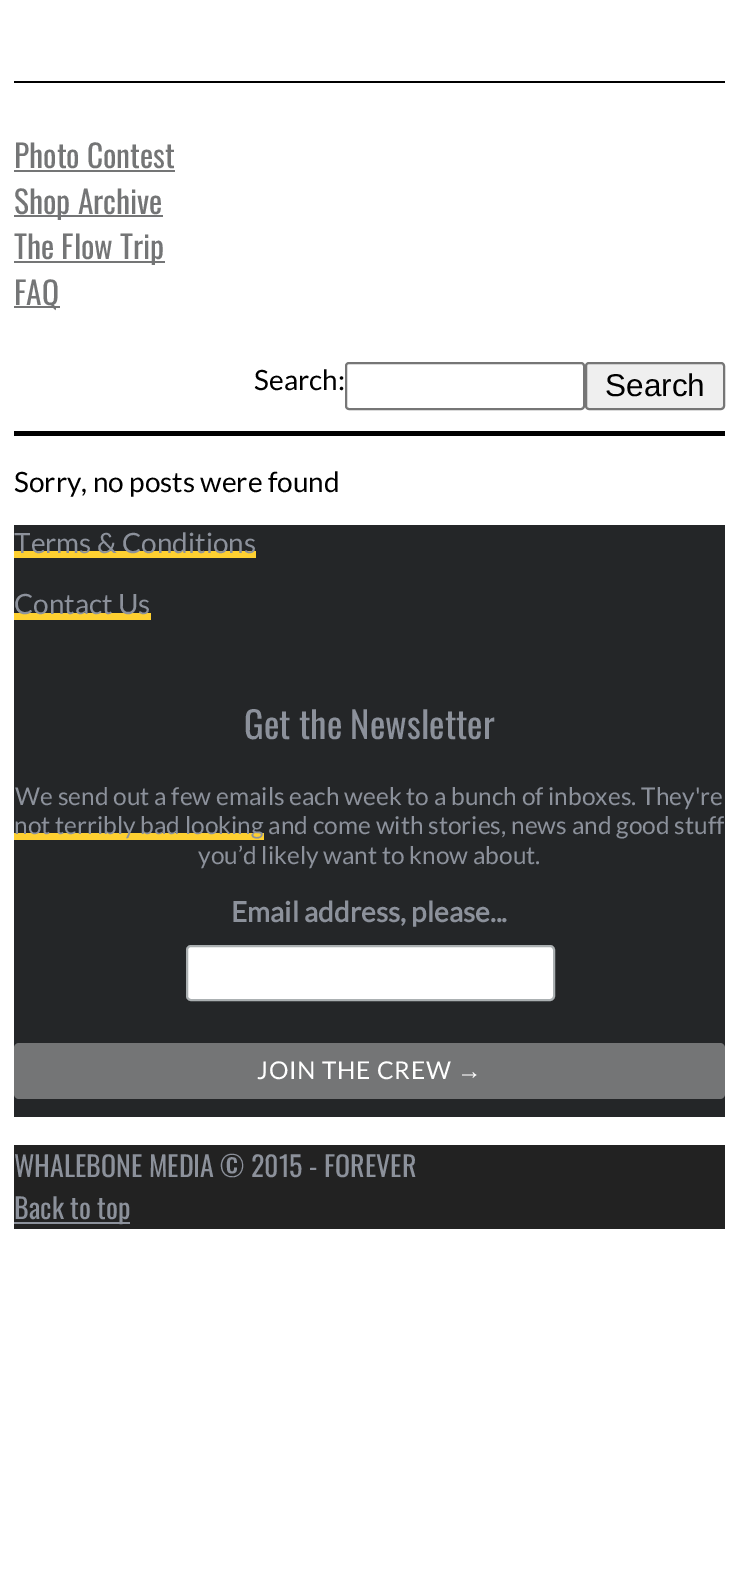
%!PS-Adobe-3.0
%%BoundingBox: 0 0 738 1591
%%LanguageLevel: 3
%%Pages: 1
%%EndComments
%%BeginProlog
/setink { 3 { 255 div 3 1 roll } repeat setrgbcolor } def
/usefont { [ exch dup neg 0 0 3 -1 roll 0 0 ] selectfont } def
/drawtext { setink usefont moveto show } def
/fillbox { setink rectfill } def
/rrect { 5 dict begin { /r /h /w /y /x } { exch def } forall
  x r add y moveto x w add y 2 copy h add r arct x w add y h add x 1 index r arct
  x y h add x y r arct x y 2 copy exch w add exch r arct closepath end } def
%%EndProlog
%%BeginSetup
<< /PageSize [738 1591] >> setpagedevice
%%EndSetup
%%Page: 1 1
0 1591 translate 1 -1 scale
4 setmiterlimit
0 0 738 1591 255 255 255 fillbox
14 81 711 2 0 0 0 fillbox
14 431 711 5 0 0 0 fillbox
(Photo Contest) 14 168 /Oswald-Regular 31.5 116 117 118 drawtext
14 170 161 2 116 117 118 fillbox
14 215 149 2 116 117 118 fillbox
(Shop Archive) 14 214 /Oswald-Regular 31.5 116 117 118 drawtext
14 261 151 2 116 117 118 fillbox
(The Flow Trip) 14 259 /Oswald-Regular 31.5 116 117 118 drawtext
14 306 46 2 116 117 118 fillbox
(FAQ) 14 305 /Oswald-Regular 31.5 116 117 118 drawtext
(Search:) 254 390 /Lato-Regular 28 0 0 0 drawtext
118 118 118 setink
2 setlinewidth
346 363 238 46 3 rrect stroke
239 239 239 setink
586 363 138 46 3 rrect gsave fill grestore
118 118 118 setink
stroke
(Search) 605 396 /LiberationSans-Regular 31.5 0 0 0 drawtext
(Sorry, no posts were found) 14 492 /Lato-Regular 28 0 0 0 drawtext
14 525 711 592 36 38 40 fillbox
14 551 242 7 254 208 49 fillbox
(Terms & Conditions) 14 553 /Lato-Regular 28 140 145 155 drawtext
14 613 137 7 254 208 49 fillbox
(Contact Us) 14 614 /Lato-Regular 28 140 145 155 drawtext
(Get the Newsletter) 244 739 /Oswald-Regular 36.75 140 145 155 drawtext
(We send out a few emails each week to a bunch of inboxes. They're) 15 805 /Lato-Regular 24.5 140 145 155 drawtext
14 833 250 7 254 208 49 fillbox
(not terribly bad looking and come with stories, news and good stuff) 14 834 /Lato-Regular 24.5 140 145 155 drawtext
(you’d likely want to know about.) 198 864 /Lato-Regular 24.5 140 145 155 drawtext
(Email address, please...) 231 922 /Lato-Bold 28 140 145 155 drawtext
255 255 255 setink
187 946 367 54 4 rrect gsave fill grestore
171 176 178 setink
stroke
116 117 118 setink
14 1043 711 56 5 rrect fill
/Lato-Regular 24.5 usefont
255 255 255 setink
257 1079 moveto 0.75 0 (JOIN THE CREW) ashow
/LiberationSerif-Regular 24.5 usefont
457 1079 moveto 0.75 0 (→) ashow
14 1145 711 84 34 34 34 fillbox
(WHALEBONE MEDIA © 2015 - FOREVER) 14 1177 /Oswald-Regular 28 140 145 155 drawtext
14 1222 116 2 140 145 155 fillbox
(Back to top) 14 1219 /Oswald-Regular 28 140 145 155 drawtext
showpage
%%EOF
